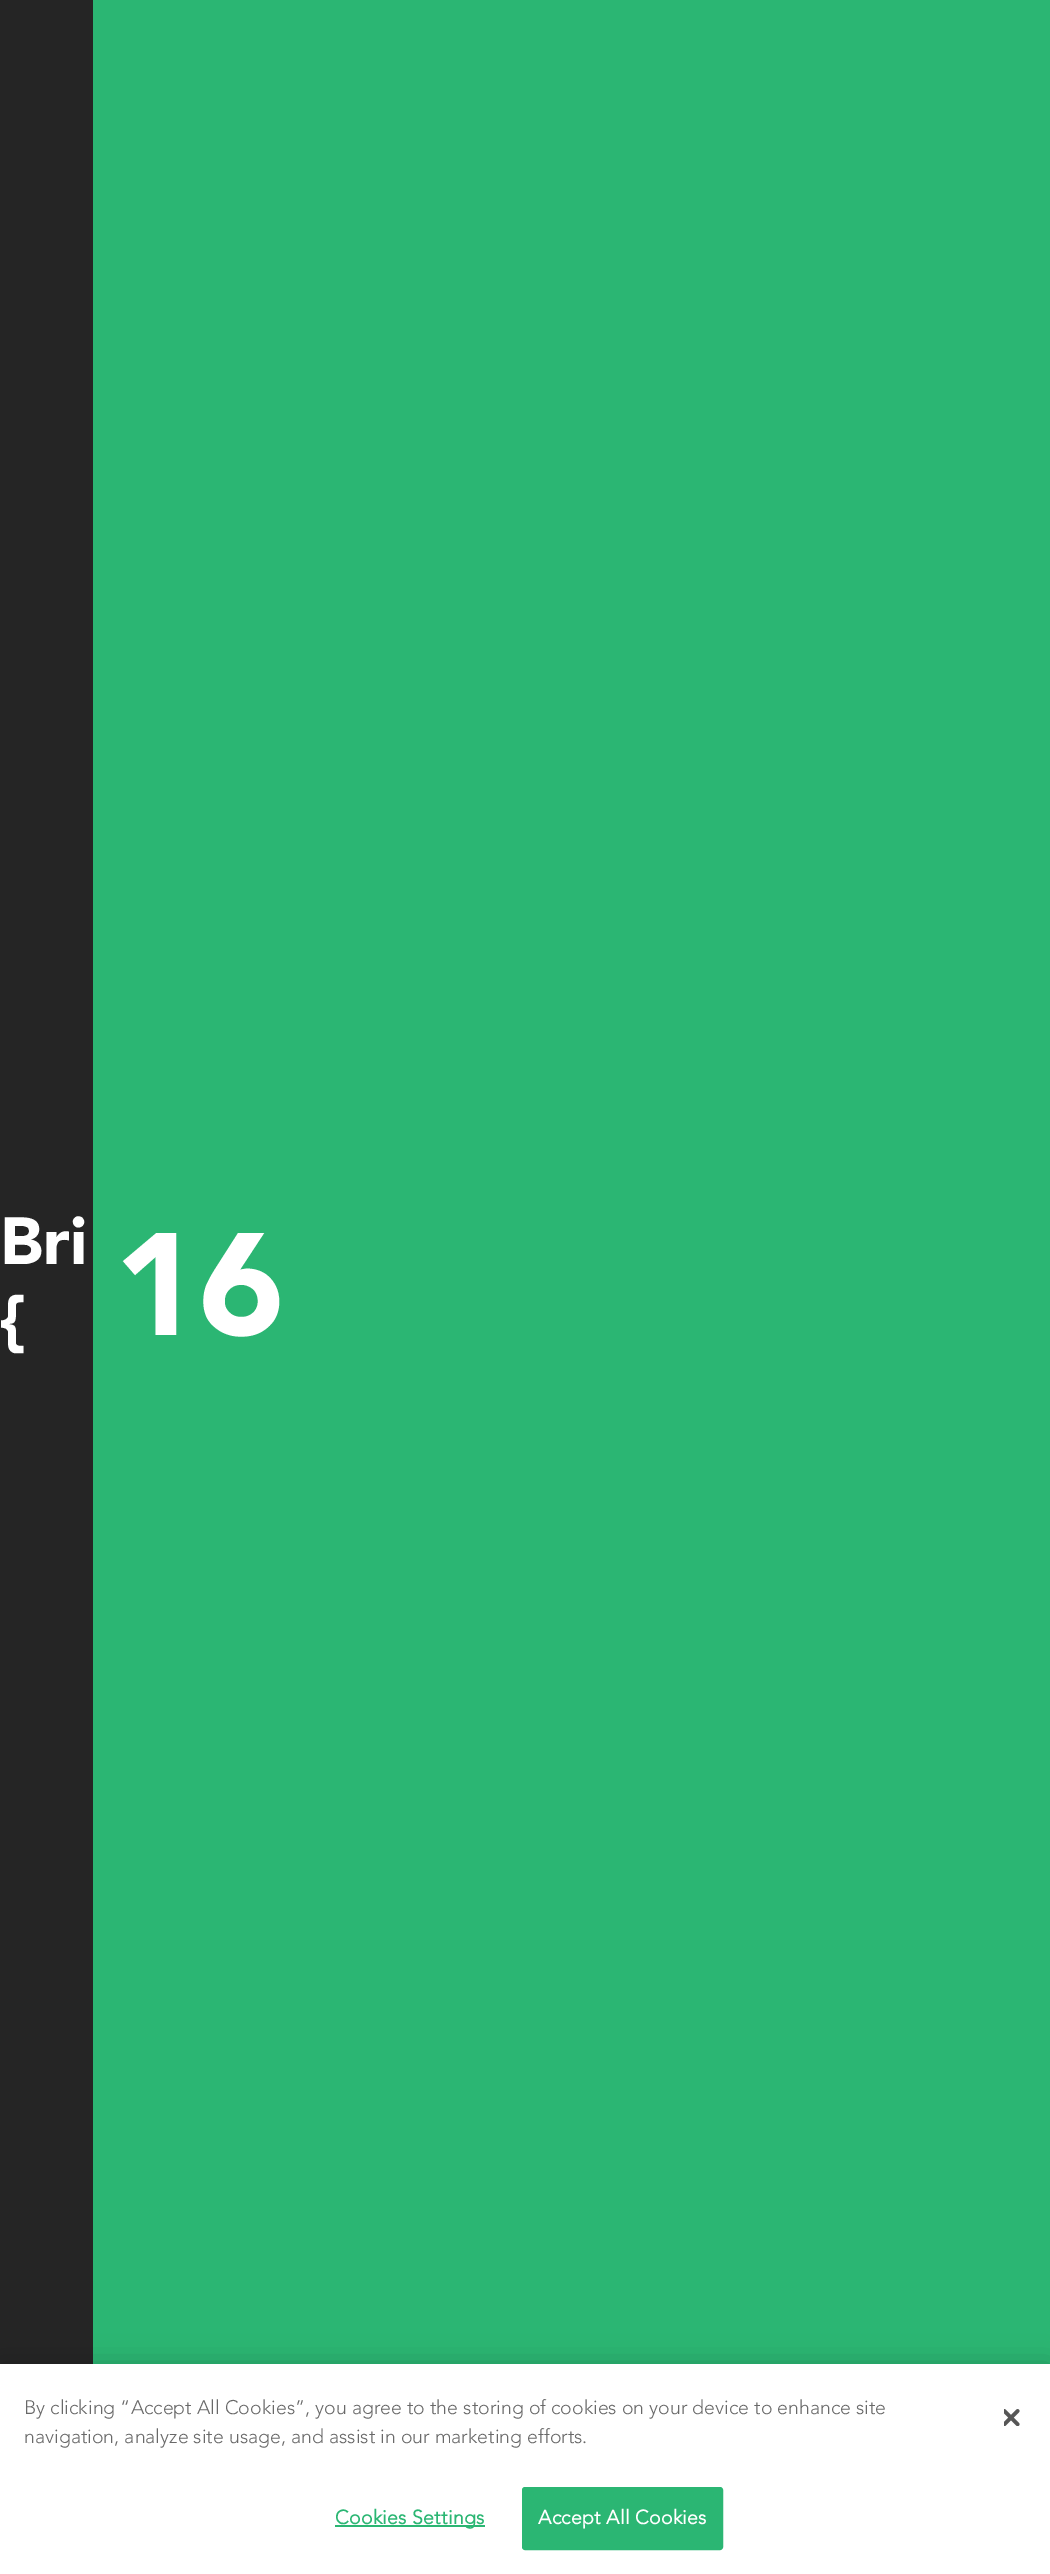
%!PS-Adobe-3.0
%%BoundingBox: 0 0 1050 2574
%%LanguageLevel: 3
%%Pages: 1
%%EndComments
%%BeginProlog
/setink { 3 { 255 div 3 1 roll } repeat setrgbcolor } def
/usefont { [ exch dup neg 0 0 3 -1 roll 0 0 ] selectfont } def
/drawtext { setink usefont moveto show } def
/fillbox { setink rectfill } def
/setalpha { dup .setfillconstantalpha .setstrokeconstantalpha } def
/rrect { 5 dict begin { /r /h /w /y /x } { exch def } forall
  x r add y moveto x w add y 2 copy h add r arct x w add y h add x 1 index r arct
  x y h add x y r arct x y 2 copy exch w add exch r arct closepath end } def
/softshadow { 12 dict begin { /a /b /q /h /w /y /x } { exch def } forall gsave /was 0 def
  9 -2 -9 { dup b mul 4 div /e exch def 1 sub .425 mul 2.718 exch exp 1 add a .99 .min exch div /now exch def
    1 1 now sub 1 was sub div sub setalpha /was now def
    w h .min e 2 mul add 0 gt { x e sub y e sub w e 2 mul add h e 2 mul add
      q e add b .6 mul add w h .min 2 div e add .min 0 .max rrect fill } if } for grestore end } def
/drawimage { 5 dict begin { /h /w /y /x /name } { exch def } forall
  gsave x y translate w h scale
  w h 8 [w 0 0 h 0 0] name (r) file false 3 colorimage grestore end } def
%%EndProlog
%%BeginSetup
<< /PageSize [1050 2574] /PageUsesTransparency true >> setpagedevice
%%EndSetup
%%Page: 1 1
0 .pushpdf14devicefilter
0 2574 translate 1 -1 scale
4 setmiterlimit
0 0 1050 2574 37 37 37 fillbox
(Bri) 0 1264 /Avenir-Regular 66 255 255 255 drawtext
({) 0 1343 /Avenir-Regular 66 255 255 255 drawtext
93 0 957 2364 43 182 115 fillbox
(16) 114 1335 /Avenir-Regular 144 255 255 255 drawtext
0 0 0 setink
0 2364 1050 210 0 13.5 0.2 softshadow
0 2364 1050 210 255 255 255 fillbox
(By clicking “Accept All Cookies”, you agree to the storing of cookies on your device to enhance site) 24 2414 /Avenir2-Regular 19.5 105 105 105 drawtext
(navigation, analyze site usage, and assist in our marketing efforts.) 24 2443 /Avenir2-Regular 19.5 105 105 105 drawtext
(assets/img1.rgb) 1004 2409 16 17 drawimage
335 2525 150 2 43 182 115 fillbox
/Avenir-Bold 19.5 usefont
335 2524 moveto 0.25 0 (Cookies Settings) ashow
523 2488 199 61 2 rrect gsave fill grestore
2 setlinewidth
stroke
255 255 255 setink
538 2524 moveto 0.25 0 (Accept All Cookies) ashow
.poppdf14devicefilter showpage
%%EOF
